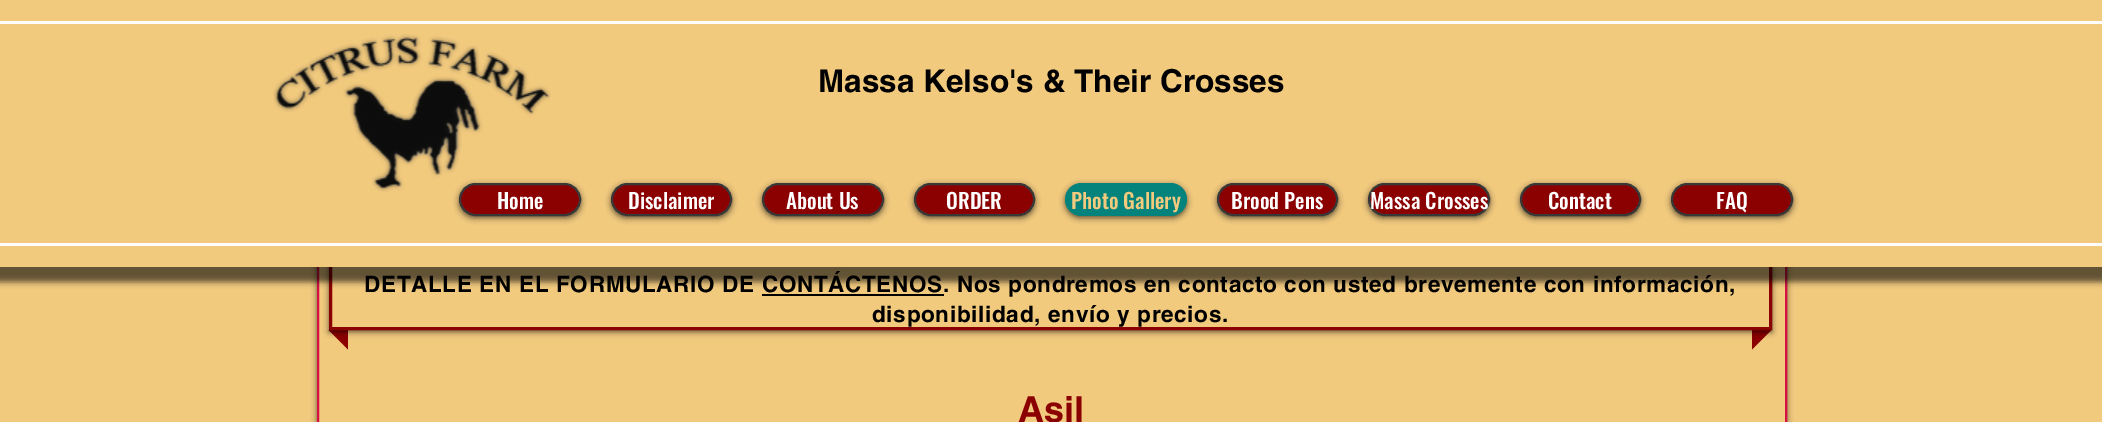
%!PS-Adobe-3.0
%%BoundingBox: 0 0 2102 422
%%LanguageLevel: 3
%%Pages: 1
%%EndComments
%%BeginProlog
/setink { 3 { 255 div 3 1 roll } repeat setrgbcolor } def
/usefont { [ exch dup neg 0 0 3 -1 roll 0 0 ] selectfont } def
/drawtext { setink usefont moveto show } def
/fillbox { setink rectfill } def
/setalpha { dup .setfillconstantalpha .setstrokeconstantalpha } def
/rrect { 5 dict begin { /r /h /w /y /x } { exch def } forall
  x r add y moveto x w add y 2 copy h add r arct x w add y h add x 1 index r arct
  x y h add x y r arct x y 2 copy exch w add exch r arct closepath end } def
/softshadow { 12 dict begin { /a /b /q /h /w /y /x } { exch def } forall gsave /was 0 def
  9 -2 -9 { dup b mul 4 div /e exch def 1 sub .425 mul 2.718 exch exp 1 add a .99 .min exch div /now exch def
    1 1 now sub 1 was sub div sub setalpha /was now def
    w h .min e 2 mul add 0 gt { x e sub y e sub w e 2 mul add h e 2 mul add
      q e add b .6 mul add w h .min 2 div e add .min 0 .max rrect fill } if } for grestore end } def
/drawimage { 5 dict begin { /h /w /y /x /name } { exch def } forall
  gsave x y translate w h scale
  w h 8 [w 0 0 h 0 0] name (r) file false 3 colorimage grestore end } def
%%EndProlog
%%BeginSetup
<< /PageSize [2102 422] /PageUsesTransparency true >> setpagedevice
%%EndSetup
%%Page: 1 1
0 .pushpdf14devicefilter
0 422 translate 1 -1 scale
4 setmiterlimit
0 0 2102 422 242 202 126 fillbox
0 0 0 setink
317 137 1470 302 8 3 0.6 softshadow
319 267 1466 155 242 202 126 fillbox
214 16 67 setink
2 setlinewidth
318 136 1468 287 rectstroke
139 0 0 setink
328.5 330 moveto 348 330 lineto 348 349.5 lineto closepath fill
1752 330 moveto 1771.5 330 lineto 1752 349.5 lineto closepath fill
gsave
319 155 moveto 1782 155 lineto 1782 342 lineto 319 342 lineto closepath 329 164 moveto 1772 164 lineto 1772 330 lineto 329 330 lineto closepath eoclip newpath
0 0 0 setink
329 165 1443 167 0 3 0.6 softshadow
grestore
3 setlinewidth
330.5 165.5 1440 163 rectstroke
0 0 0 setink
-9 -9 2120 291 0 3 0.6 softshadow
0 0 2102 267 242 202 126 fillbox
0 21 2102 3 255 255 255 fillbox
0 243 2102 3 255 255 255 fillbox
(assets/img1.rgb) 273 34 278 158 drawimage
(Massa Kelso's & Their Crosses) 818 92 /helvetica-Bold 31.5 0 0 0 drawtext
459 185 122 33 16.5 3 0.6 softshadow
139 0 0 setink
460 184 120 31 15.5 rrect gsave fill grestore
56 56 56 setink
2 setlinewidth
stroke
(Home) 497 209 /Oswald-Medium 21 255 255 255 drawtext
0 0 0 setink
611 185 121 33 16.5 3 0.6 softshadow
139 0 0 setink
612 184 119 31 15.5 rrect gsave fill grestore
56 56 56 setink
stroke
(Disclaimer) 628 209 /Oswald-Medium 21 255 255 255 drawtext
0 0 0 setink
762 185 122 33 16.5 3 0.6 softshadow
139 0 0 setink
763 184 120 31 15.5 rrect gsave fill grestore
56 56 56 setink
stroke
(About Us) 786 209 /Oswald-Medium 21 255 255 255 drawtext
0 0 0 setink
914 185 121 33 16.5 3 0.6 softshadow
139 0 0 setink
915 184 119 31 15.5 rrect gsave fill grestore
56 56 56 setink
stroke
(ORDER) 946 209 /Oswald-Medium 21 255 255 255 drawtext
0 0 0 setink
1065 185 122 33 16.5 3 0.6 softshadow
3 131 123 setink
1065 183 122 33 16.5 rrect fill
(Photo Gallery) 1071 209 /Oswald-Medium 21 242 202 126 drawtext
0 0 0 setink
1217 185 121 33 16.5 3 0.6 softshadow
139 0 0 setink
1218 184 119 31 15.5 rrect gsave fill grestore
56 56 56 setink
stroke
(Brood Pens) 1231 209 /Oswald-Medium 21 255 255 255 drawtext
0 0 0 setink
1368 185 122 33 16.5 3 0.6 softshadow
139 0 0 setink
1369 184 120 31 15.5 rrect gsave fill grestore
56 56 56 setink
stroke
(Massa Crosses) 1370 209 /Oswald-Medium 21 255 255 255 drawtext
0 0 0 setink
1520 185 121 33 16.5 3 0.6 softshadow
139 0 0 setink
1521 184 119 31 15.5 rrect gsave fill grestore
56 56 56 setink
stroke
(Contact) 1548 209 /Oswald-Medium 21 255 255 255 drawtext
0 0 0 setink
1671 185 122 33 16.5 3 0.6 softshadow
139 0 0 setink
1672 184 120 31 15.5 rrect gsave fill grestore
56 56 56 setink
stroke
(FAQ) 1716 209 /Oswald-Medium 21 255 255 255 drawtext
/helvetica-Bold 22.5 usefont
0 0 0 setink
364 292 moveto 0.68 0 (DETALLE EN EL FORMULARIO DE CONTÁCTENOS. Nos pondremos en contacto con usted brevemente con información,) ashow
762 294 182 2 0 0 0 fillbox
872 322 moveto 0.68 0 (disponibilidad, envío y precios.) ashow
(Asil) 1018 422 /helvetica-Bold 36 139 0 0 drawtext
.poppdf14devicefilter showpage
%%EOF
